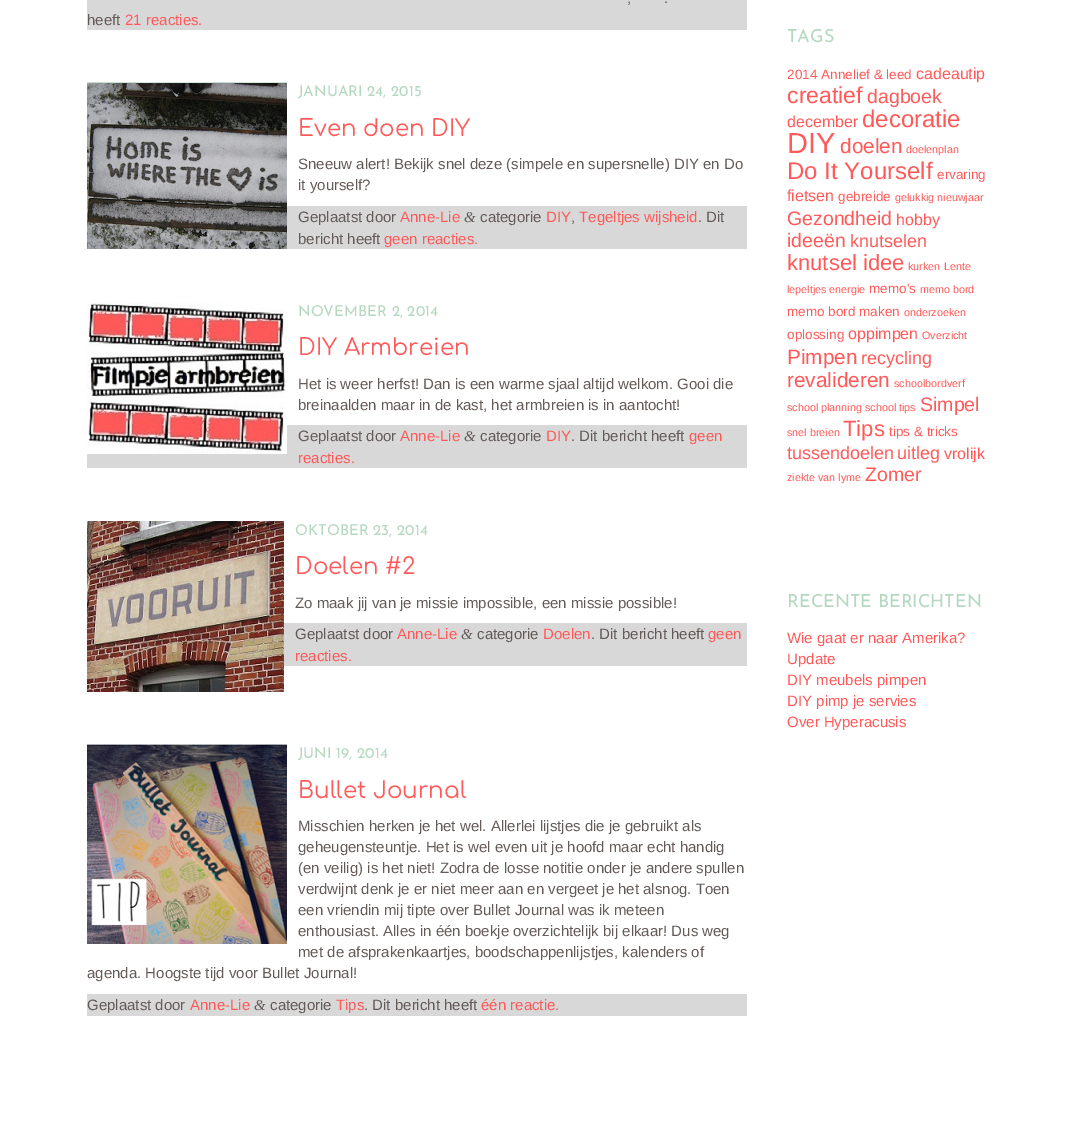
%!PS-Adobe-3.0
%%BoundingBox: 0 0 1074 1137
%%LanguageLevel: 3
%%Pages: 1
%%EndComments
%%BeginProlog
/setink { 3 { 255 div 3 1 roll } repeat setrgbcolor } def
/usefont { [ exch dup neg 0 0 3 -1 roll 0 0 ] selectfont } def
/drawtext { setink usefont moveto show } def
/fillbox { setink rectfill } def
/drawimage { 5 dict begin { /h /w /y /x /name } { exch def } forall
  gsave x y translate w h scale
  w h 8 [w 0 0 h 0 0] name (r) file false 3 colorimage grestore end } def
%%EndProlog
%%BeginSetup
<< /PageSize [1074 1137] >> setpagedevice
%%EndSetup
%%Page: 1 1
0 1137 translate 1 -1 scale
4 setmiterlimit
0 0 1074 1137 255 255 255 fillbox
87 0 660 30 216 216 216 fillbox
(,) 627 3 /LiberationSans-Regular 15 100 90 88 drawtext
(.) 664 3 /LiberationSans-Regular 15 100 90 88 drawtext
(heeft) 87 25 /LiberationSans-Regular 15 100 90 88 drawtext
(21 reacties.) 125 25 /LiberationSans-Regular 15 255 90 89 drawtext
(assets/img1.rgb) 87 82 200 167 drawimage
(JANUARI 24, 2015) 298 96 /JosefinSans-Regular 15 181 216 192 drawtext
(Even doen DIY) 298 136 /Comfortaa-Regular 23 255 90 89 drawtext
(Sneeuw alert! Bekijk snel deze \(simpele en supersnelle\) DIY en Do) 298 169 /LiberationSans-Regular 15 100 90 88 drawtext
(it yourself?) 298 190 /LiberationSans-Regular 15 100 90 88 drawtext
287 206 460 43 216 216 216 fillbox
(Geplaatst door) 298 222 /LiberationSans-Regular 15 100 90 88 drawtext
(Anne-Lie) 400 222 /LiberationSans-Regular 15 255 90 89 drawtext
(&) 464 222 /LiberationSerif-Italic 15 100 90 88 drawtext
(categorie) 480 222 /LiberationSans-Regular 15 100 90 88 drawtext
(DIY) 546 222 /LiberationSans-Regular 15 255 90 89 drawtext
(,) 571 222 /LiberationSans-Regular 15 100 90 88 drawtext
(Tegeltjes wijsheid) 579 222 /LiberationSans-Regular 15 255 90 89 drawtext
(. Dit) 698 222 /LiberationSans-Regular 15 100 90 88 drawtext
(bericht heeft) 298 244 /LiberationSans-Regular 15 100 90 88 drawtext
(geen reacties.) 384 244 /LiberationSans-Regular 15 255 90 89 drawtext
87 425 660 43 216 216 216 fillbox
(assets/img2.rgb) 87 302 200 152 drawimage
(NOVEMBER 2, 2014) 298 316 /JosefinSans-Regular 15 181 216 192 drawtext
(DIY Armbreien) 298 355 /Comfortaa-Regular 23 255 90 89 drawtext
(Het is weer herfst! Dan is een warme sjaal altijd welkom. Gooi die) 298 389 /LiberationSans-Regular 15 100 90 88 drawtext
(breinaalden maar in de kast, het armbreien is in aantocht!) 298 410 /LiberationSans-Regular 15 100 90 88 drawtext
(Geplaatst door) 298 441 /LiberationSans-Regular 15 100 90 88 drawtext
(Anne-Lie) 400 441 /LiberationSans-Regular 15 255 90 89 drawtext
(&) 464 441 /LiberationSerif-Italic 15 100 90 88 drawtext
(categorie) 480 441 /LiberationSans-Regular 15 100 90 88 drawtext
(DIY) 546 441 /LiberationSans-Regular 15 255 90 89 drawtext
(. Dit bericht heeft) 571 441 /LiberationSans-Regular 15 100 90 88 drawtext
(geen) 689 441 /LiberationSans-Regular 15 255 90 89 drawtext
(reacties.) 298 463 /LiberationSans-Regular 15 255 90 89 drawtext
(assets/img3.rgb) 87 521 197 171 drawimage
(OKTOBER 23, 2014) 295 535 /JosefinSans-Regular 15 181 216 192 drawtext
(Doelen #2) 295 574 /Comfortaa-Regular 23 255 90 89 drawtext
(Zo maak jij van je missie impossible, een missie possible!) 295 608 /LiberationSans-Regular 15 100 90 88 drawtext
284 623 463 43 216 216 216 fillbox
(Geplaatst door) 295 639 /LiberationSans-Regular 15 100 90 88 drawtext
(Anne-Lie) 397 639 /LiberationSans-Regular 15 255 90 89 drawtext
(&) 461 639 /LiberationSerif-Italic 15 100 90 88 drawtext
(categorie) 477 639 /LiberationSans-Regular 15 100 90 88 drawtext
(Doelen) 543 639 /LiberationSans-Regular 15 255 90 89 drawtext
(. Dit bericht heeft) 591 639 /LiberationSans-Regular 15 100 90 88 drawtext
(geen) 708 639 /LiberationSans-Regular 15 255 90 89 drawtext
(reacties.) 295 661 /LiberationSans-Regular 15 255 90 89 drawtext
(assets/img4.rgb) 87 744 200 200 drawimage
(JUNI 19, 2014) 298 758 /JosefinSans-Regular 15 181 216 192 drawtext
(Bullet Journal) 298 798 /Comfortaa-Regular 23 255 90 89 drawtext
(Misschien herken je het wel. Allerlei lijstjes die je gebruikt als) 298 831 /LiberationSans-Regular 15 100 90 88 drawtext
(geheugensteuntje. Het is wel even uit je hoofd maar echt handig) 298 852 /LiberationSans-Regular 15 100 90 88 drawtext
(\(en veilig\) is het niet! Zodra de losse notitie onder je andere spullen) 298 873 /LiberationSans-Regular 15 100 90 88 drawtext
(verdwijnt denk je er niet meer aan en vergeet je het alsnog. Toen) 298 894 /LiberationSans-Regular 15 100 90 88 drawtext
(een vriendin mij tipte over Bullet Journal was ik meteen) 298 915 /LiberationSans-Regular 15 100 90 88 drawtext
(enthousiast. Alles in één boekje overzichtelijk bij elkaar! Dus weg) 298 936 /LiberationSans-Regular 15 100 90 88 drawtext
(met de afsprakenkaartjes, boodschappenlijstjes, kalenders of) 298 957 /LiberationSans-Regular 15 100 90 88 drawtext
(agenda. Hoogste tijd voor Bullet Journal!) 87 978 /LiberationSans-Regular 15 100 90 88 drawtext
87 994 660 22 216 216 216 fillbox
(Geplaatst door) 87 1010 /LiberationSans-Regular 15 100 90 88 drawtext
(Anne-Lie) 190 1010 /LiberationSans-Regular 15 255 90 89 drawtext
(&) 254 1010 /LiberationSerif-Italic 15 100 90 88 drawtext
(categorie) 270 1010 /LiberationSans-Regular 15 100 90 88 drawtext
(Tips) 336 1010 /LiberationSans-Regular 15 255 90 89 drawtext
(. Dit bericht heeft) 364 1010 /LiberationSans-Regular 15 100 90 88 drawtext
(één reactie.) 481 1010 /LiberationSans-Regular 15 255 90 89 drawtext
(TAGS) 787 42 /JosefinSans-Regular 18 181 216 192 drawtext
(2014) 787 79 /LiberationSans-Regular 13.5 255 90 89 drawtext
(Annelief & leed) 821 79 /LiberationSans-Regular 13.5 255 90 89 drawtext
(cadeautip) 916 79 /LiberationSans-Regular 16 255 90 89 drawtext
(creatief) 787 103 /LiberationSans-Regular 23 255 90 89 drawtext
(dagboek) 867 103 /LiberationSans-Regular 19.5 255 90 89 drawtext
(december) 787 127 /LiberationSans-Regular 16 255 90 89 drawtext
(decoratie) 862 127 /LiberationSans-Regular 24 255 90 89 drawtext
(DIY) 787 153 /LiberationSans-Regular 29 255 90 89 drawtext
(doelen) 840 153 /LiberationSans-Regular 20.75 255 90 89 drawtext
(doelenplan) 906 153 /LiberationSans-Regular 10.75 255 90 89 drawtext
(Do It Yourself) 787 179 /LiberationSans-Regular 24 255 90 89 drawtext
(ervaring) 937 179 /LiberationSans-Regular 13.5 255 90 89 drawtext
(fietsen) 787 201 /LiberationSans-Regular 16 255 90 89 drawtext
(gebreide) 838 201 /LiberationSans-Regular 13.5 255 90 89 drawtext
(gelukkig nieuwjaar) 895 201 /LiberationSans-Regular 10.75 255 90 89 drawtext
(Gezondheid) 787 225 /LiberationSans-Regular 19.5 255 90 89 drawtext
(hobby) 896 225 /LiberationSans-Regular 16 255 90 89 drawtext
(ideeën) 787 247 /LiberationSans-Regular 19.5 255 90 89 drawtext
(knutselen) 850 247 /LiberationSans-Regular 18 255 90 89 drawtext
(knutsel idee) 787 270 /LiberationSans-Regular 22 255 90 89 drawtext
(kurken) 908 270 /LiberationSans-Regular 10.75 255 90 89 drawtext
(Lente) 944 270 /LiberationSans-Regular 10.75 255 90 89 drawtext
(lepeltjes energie) 787 293 /LiberationSans-Regular 10.75 255 90 89 drawtext
(memo's) 869 293 /LiberationSans-Regular 13.5 255 90 89 drawtext
(memo bord) 920 293 /LiberationSans-Regular 10.75 255 90 89 drawtext
(memo bord maken) 787 316 /LiberationSans-Regular 13.5 255 90 89 drawtext
(onderzoeken) 904 316 /LiberationSans-Regular 10.75 255 90 89 drawtext
(oplossing) 787 339 /LiberationSans-Regular 13.5 255 90 89 drawtext
(oppimpen) 848 339 /LiberationSans-Regular 16 255 90 89 drawtext
(Overzicht) 922 339 /LiberationSans-Regular 10.75 255 90 89 drawtext
(Pimpen) 787 364 /LiberationSans-Regular 20.75 255 90 89 drawtext
(recycling) 861 364 /LiberationSans-Regular 18 255 90 89 drawtext
(revalideren) 787 387 /LiberationSans-Regular 20.75 255 90 89 drawtext
(schoolbordverf) 894 387 /LiberationSans-Regular 10.75 255 90 89 drawtext
(school planning) 787 411 /LiberationSans-Regular 10.75 255 90 89 drawtext
(school tips) 865 411 /LiberationSans-Regular 10.75 255 90 89 drawtext
(Simpel) 920 411 /LiberationSans-Regular 19.5 255 90 89 drawtext
(snel breien) 787 436 /LiberationSans-Regular 10.75 255 90 89 drawtext
(Tips) 843 436 /LiberationSans-Regular 22 255 90 89 drawtext
(tips & tricks) 889 436 /LiberationSans-Regular 13.5 255 90 89 drawtext
(tussendoelen) 787 459 /LiberationSans-Regular 18 255 90 89 drawtext
(uitleg) 897 459 /LiberationSans-Regular 18 255 90 89 drawtext
(vrolijk) 944 459 /LiberationSans-Regular 16 255 90 89 drawtext
(ziekte van lyme) 787 481 /LiberationSans-Regular 10.75 255 90 89 drawtext
(Zomer) 865 481 /LiberationSans-Regular 19.5 255 90 89 drawtext
(RECENTE BERICHTEN) 787 607 /JosefinSans-Regular 18 181 216 192 drawtext
(Wie gaat er naar Amerika?) 787 643 /LiberationSans-Regular 15 255 90 89 drawtext
(Update) 787 664 /LiberationSans-Regular 15 255 90 89 drawtext
(DIY meubels pimpen) 787 685 /LiberationSans-Regular 15 255 90 89 drawtext
(DIY pimp je servies) 787 706 /LiberationSans-Regular 15 255 90 89 drawtext
(Over Hyperacusis) 787 727 /LiberationSans-Regular 15 255 90 89 drawtext
showpage
%%EOF
